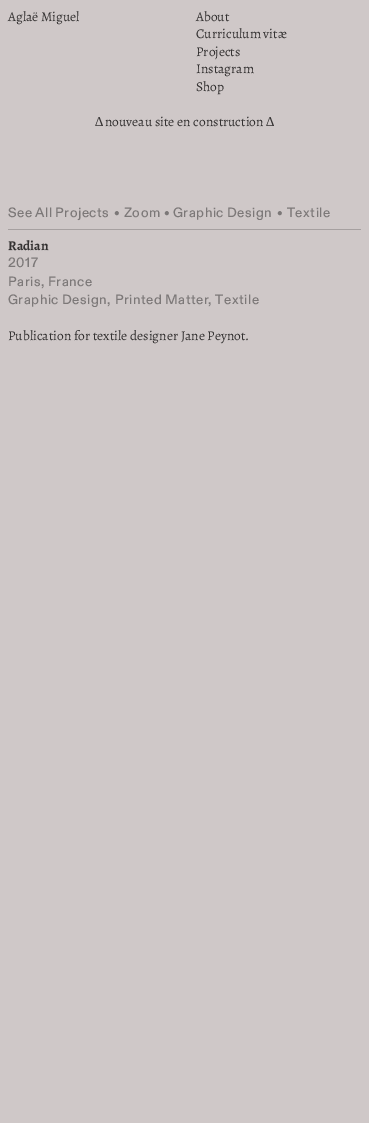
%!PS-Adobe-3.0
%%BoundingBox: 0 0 369 1123
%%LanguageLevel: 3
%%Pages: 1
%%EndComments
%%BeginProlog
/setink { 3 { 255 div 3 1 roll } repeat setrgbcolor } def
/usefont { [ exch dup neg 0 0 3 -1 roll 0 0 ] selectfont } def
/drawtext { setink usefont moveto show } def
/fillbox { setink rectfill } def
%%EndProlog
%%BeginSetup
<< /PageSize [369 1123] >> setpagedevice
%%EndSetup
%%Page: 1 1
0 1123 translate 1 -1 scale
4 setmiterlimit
0 0 369 1123 207 200 200 fillbox
(Aglaë Miguel) 8 21 /Alegreya-Regular 13.5 52 50 50 drawtext
(About) 196 21 /Alegreya-Regular 13.5 52 50 50 drawtext
(Curriculum vitæ) 196 38 /Alegreya-Regular 13.5 52 50 50 drawtext
(Projects) 196 56 /Alegreya-Regular 13.5 52 50 50 drawtext
(Instagram) 196 73 /Alegreya-Regular 13.5 52 50 50 drawtext
(Shop) 196 91 /Alegreya-Regular 13.5 52 50 50 drawtext
(∆) 95 126 /LiberationSerif-Regular 13.5 52 50 50 drawtext
(nouveau site en construction) 105 126 /Alegreya-Regular 13.5 52 50 50 drawtext
(∆) 266 126 /LiberationSerif-Regular 13.5 52 50 50 drawtext
/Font-Medium 13.5 usefont
124 120 120 setink
8 217 moveto -1 0 32 0.5 0 (See All Projects) awidthshow
114 217 moveto 0.5 0 (• Zoom •) ashow
173 217 moveto -1 0 32 0.5 0 (Graphic Design) awidthshow
277 217 moveto 0.5 0 (• Textile) ashow
8 229 353 1 166 160 160 fillbox
(Radian) 8 250 /Alegreya-Bold 13.5 52 50 50 drawtext
/Font-Medium 13.5 usefont
124 120 120 setink
8 267 moveto 0.5 0 (2017) ashow
8 286 moveto 0.5 0 (Paris,) ashow
48 286 moveto 0.5 0 (France) ashow
8 304 moveto -1 0 32 0.5 0 (Graphic Design) awidthshow
107 304 moveto 0.5 0 (,) ashow
115 304 moveto -1 0 32 0.5 0 (Printed Matter) awidthshow
208 304 moveto 0.5 0 (, Textile) ashow
(Publication for textile designer Jane Peynot.) 8 340 /Alegreya-Regular 13.5 52 50 50 drawtext
showpage
%%EOF
